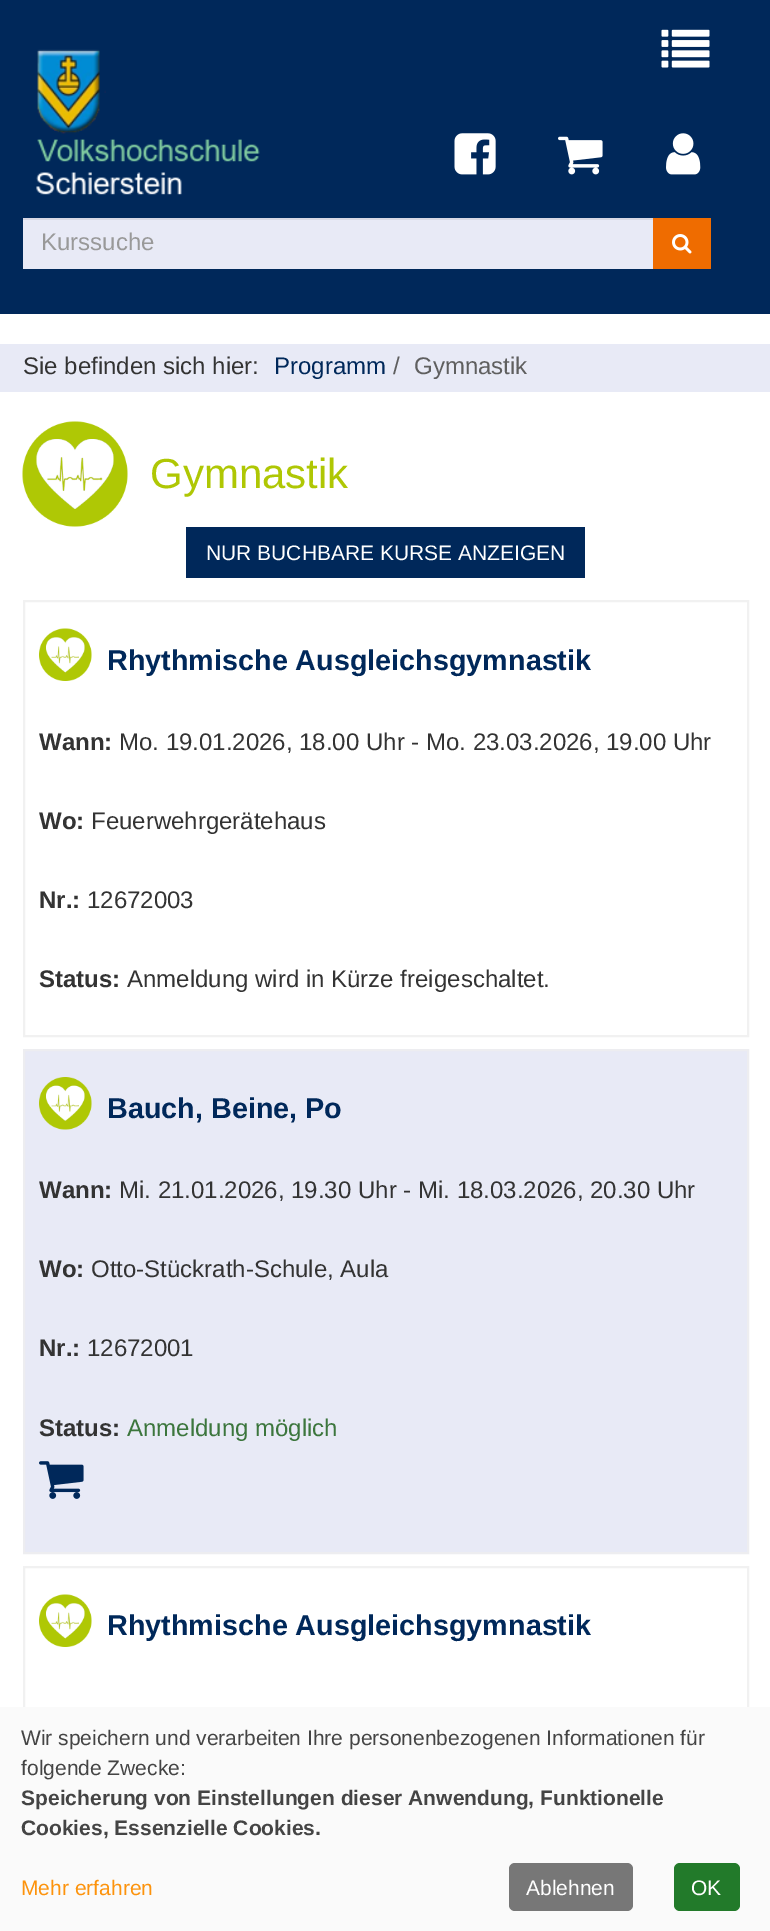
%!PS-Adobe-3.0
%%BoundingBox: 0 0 770 1931
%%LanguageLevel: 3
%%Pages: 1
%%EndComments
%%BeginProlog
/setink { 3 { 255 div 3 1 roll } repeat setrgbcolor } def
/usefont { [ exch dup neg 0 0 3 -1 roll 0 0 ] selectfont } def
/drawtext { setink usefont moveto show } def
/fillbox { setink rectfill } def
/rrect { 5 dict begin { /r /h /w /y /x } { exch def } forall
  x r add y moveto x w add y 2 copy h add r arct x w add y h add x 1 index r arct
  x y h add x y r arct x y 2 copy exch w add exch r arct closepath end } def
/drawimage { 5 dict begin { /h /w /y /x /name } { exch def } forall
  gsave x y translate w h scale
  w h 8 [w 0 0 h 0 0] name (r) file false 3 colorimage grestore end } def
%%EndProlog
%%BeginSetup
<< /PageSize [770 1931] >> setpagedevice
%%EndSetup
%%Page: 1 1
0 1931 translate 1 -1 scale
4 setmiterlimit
0 0 770 1931 255 255 255 fillbox
0 0 770 314 0 40 90 fillbox
(assets/img1.rgb) 36 49 224 146 drawimage
(assets/img2.rgb) 661 29 49 39 drawimage
(assets/img3.rgb) 454 133 42 42 drawimage
(assets/img4.rgb) 558 136 45 39 drawimage
(assets/img5.rgb) 666 133 35 42 drawimage
23 220 630 49 232 234 246 fillbox
23 218 631 2 215 216 228 fillbox
(Kurssuche) 41 250 /LiberationSans-Regular 24 153 153 153 drawtext
653 218 58 51 239 108 0 fillbox
(assets/img6.rgb) 672 234 20 20 drawimage
0 344 770 48 232 234 246 fillbox
(Sie befinden sich hier:) 23 374 /LiberationSans-Regular 24 51 51 51 drawtext
(Programm) 274 374 /LiberationSans-Regular 24 0 40 90 drawtext
(/) 393 374 /LiberationSans-Regular 24 95 95 95 drawtext
(Gymnastik) 414 374 /LiberationSans-Regular 24 95 95 95 drawtext
(assets/img7.rgb) 22 421 106 106 drawimage
(Gymnastik) 150 488 /LiberationSans-Regular 42 175 199 4 drawtext
186 527 399 51 0 40 90 fillbox
(NUR BUCHBARE KURSE ANZEIGEN) 206 560 /LiberationSans-Regular 21 255 255 255 drawtext
241 241 241 setink
2 setlinewidth
24 601 724 435 rectstroke
(assets/img8.rgb) 39 628 53 53 drawimage
(Rhythmische Ausgleichsgymnastik) 107 670 /LiberationSans-Bold 28.75 0 40 90 drawtext
(Wann:) 39 750 /LiberationSans-Bold 24 51 51 51 drawtext
(Mo. 19.01.2026, 18.00 Uhr - Mo. 23.03.2026, 19.00 Uhr) 119 750 /LiberationSans-Regular 24 51 51 51 drawtext
(Wo:) 39 829 /LiberationSans-Bold 24 51 51 51 drawtext
(Feuerwehrgerätehaus) 91 829 /LiberationSans-Regular 24 51 51 51 drawtext
(Nr.:) 39 908 /LiberationSans-Bold 24 51 51 51 drawtext
(12672003) 87 908 /LiberationSans-Regular 24 51 51 51 drawtext
(Status:) 39 987 /LiberationSans-Bold 24 51 51 51 drawtext
(Anmeldung wird in Kürze freigeschaltet.) 127 987 /LiberationSans-Regular 24 51 51 51 drawtext
232 234 246 setink
24 1050 moveto 748 1050 lineto 748 1553 lineto 24 1553 lineto closepath gsave fill grestore
237 237 240 setink
stroke
(assets/img9.rgb) 39 1077 53 53 drawimage
(Bauch, Beine, Po) 107 1118 /LiberationSans-Bold 28.75 0 40 90 drawtext
(Wann:) 39 1198 /LiberationSans-Bold 24 51 51 51 drawtext
(Mi. 21.01.2026, 19.30 Uhr - Mi. 18.03.2026, 20.30 Uhr) 119 1198 /LiberationSans-Regular 24 51 51 51 drawtext
(Wo:) 39 1277 /LiberationSans-Bold 24 51 51 51 drawtext
(Otto-Stückrath-Schule, Aula) 91 1277 /LiberationSans-Regular 24 51 51 51 drawtext
(Nr.:) 39 1356 /LiberationSans-Bold 24 51 51 51 drawtext
(12672001) 87 1356 /LiberationSans-Regular 24 51 51 51 drawtext
(Status:) 39 1436 /LiberationSans-Bold 24 51 51 51 drawtext
(Anmeldung möglich) 127 1436 /LiberationSans-Regular 24 60 118 61 drawtext
(assets/img10.rgb) 39 1461 45 38 drawimage
241 241 241 setink
24 1567 724 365 rectstroke
(assets/img8.rgb) 39 1594 53 53 drawimage
(Rhythmische Ausgleichsgymnastik) 107 1635 /LiberationSans-Bold 28.75 0 40 90 drawtext
0 1707 770 224 250 250 250 fillbox
(Wir speichern und verarbeiten Ihre personenbezogenen Informationen für) 21 1745 /LiberationSans-Regular 21 68 68 68 drawtext
(folgende Zwecke:) 21 1775 /LiberationSans-Regular 21 68 68 68 drawtext
(Speicherung von Einstellungen dieser Anwendung, Funktionelle) 21 1805 /LiberationSans-Bold 21 68 68 68 drawtext
(Cookies, Essenzielle Cookies.) 21 1835 /LiberationSans-Bold 21 68 68 68 drawtext
(Mehr erfahren) 21 1895 /LiberationSans-Regular 21 253 147 12 drawtext
119 119 119 setink
509 1863 124 48 6 rrect fill
(Ablehnen) 526 1895 /LiberationSans-Regular 21 255 255 255 drawtext
34 122 42 setink
674 1863 66 48 6 rrect fill
(OK) 691 1895 /LiberationSans-Regular 21 255 255 255 drawtext
showpage
%%EOF
